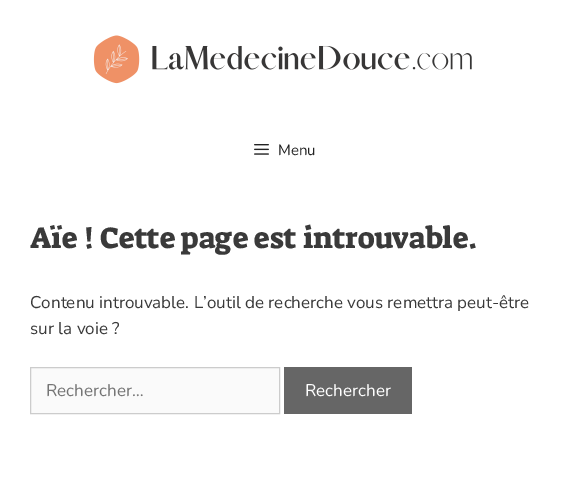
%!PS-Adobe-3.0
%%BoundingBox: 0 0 568 482
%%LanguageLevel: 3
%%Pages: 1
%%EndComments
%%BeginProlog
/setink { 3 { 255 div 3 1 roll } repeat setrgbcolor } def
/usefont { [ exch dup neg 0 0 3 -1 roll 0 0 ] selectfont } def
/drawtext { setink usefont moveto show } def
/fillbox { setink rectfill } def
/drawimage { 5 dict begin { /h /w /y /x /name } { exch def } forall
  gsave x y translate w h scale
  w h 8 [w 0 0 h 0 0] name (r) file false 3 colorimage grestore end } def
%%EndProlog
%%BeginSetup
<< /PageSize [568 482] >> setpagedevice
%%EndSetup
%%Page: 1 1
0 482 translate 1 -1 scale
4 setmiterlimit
0 0 568 482 255 255 255 fillbox
(assets/img1.rgb) 93 35 379 49 drawimage
(assets/img2.rgb) 254 144 15 11 drawimage
(Menu) 278 155 /Nunito-Regular 15 34 34 34 drawtext
(Aïe ! Cette page est introuvable.) 30 248 /SuezOne-Regular 30 58 58 58 drawtext
(Contenu introuvable. L’outil de recherche vous remettra peut-être) 30 308 /NunitoSans-ExtraLight 17 58 58 58 drawtext
(sur la voie ?) 30 334 /NunitoSans-ExtraLight 17 58 58 58 drawtext
250 250 250 setink
30.5 367.5 moveto 279.5 367.5 lineto 279.5 413.5 lineto 30.5 413.5 lineto closepath gsave fill grestore
204 204 204 setink
stroke
(Rechercher…) 46 396 /Nunito-Regular 17 117 117 117 drawtext
284 367 128 47 102 102 102 fillbox
(Rechercher) 305 396 /Nunito-Regular 17 255 255 255 drawtext
showpage
%%EOF
